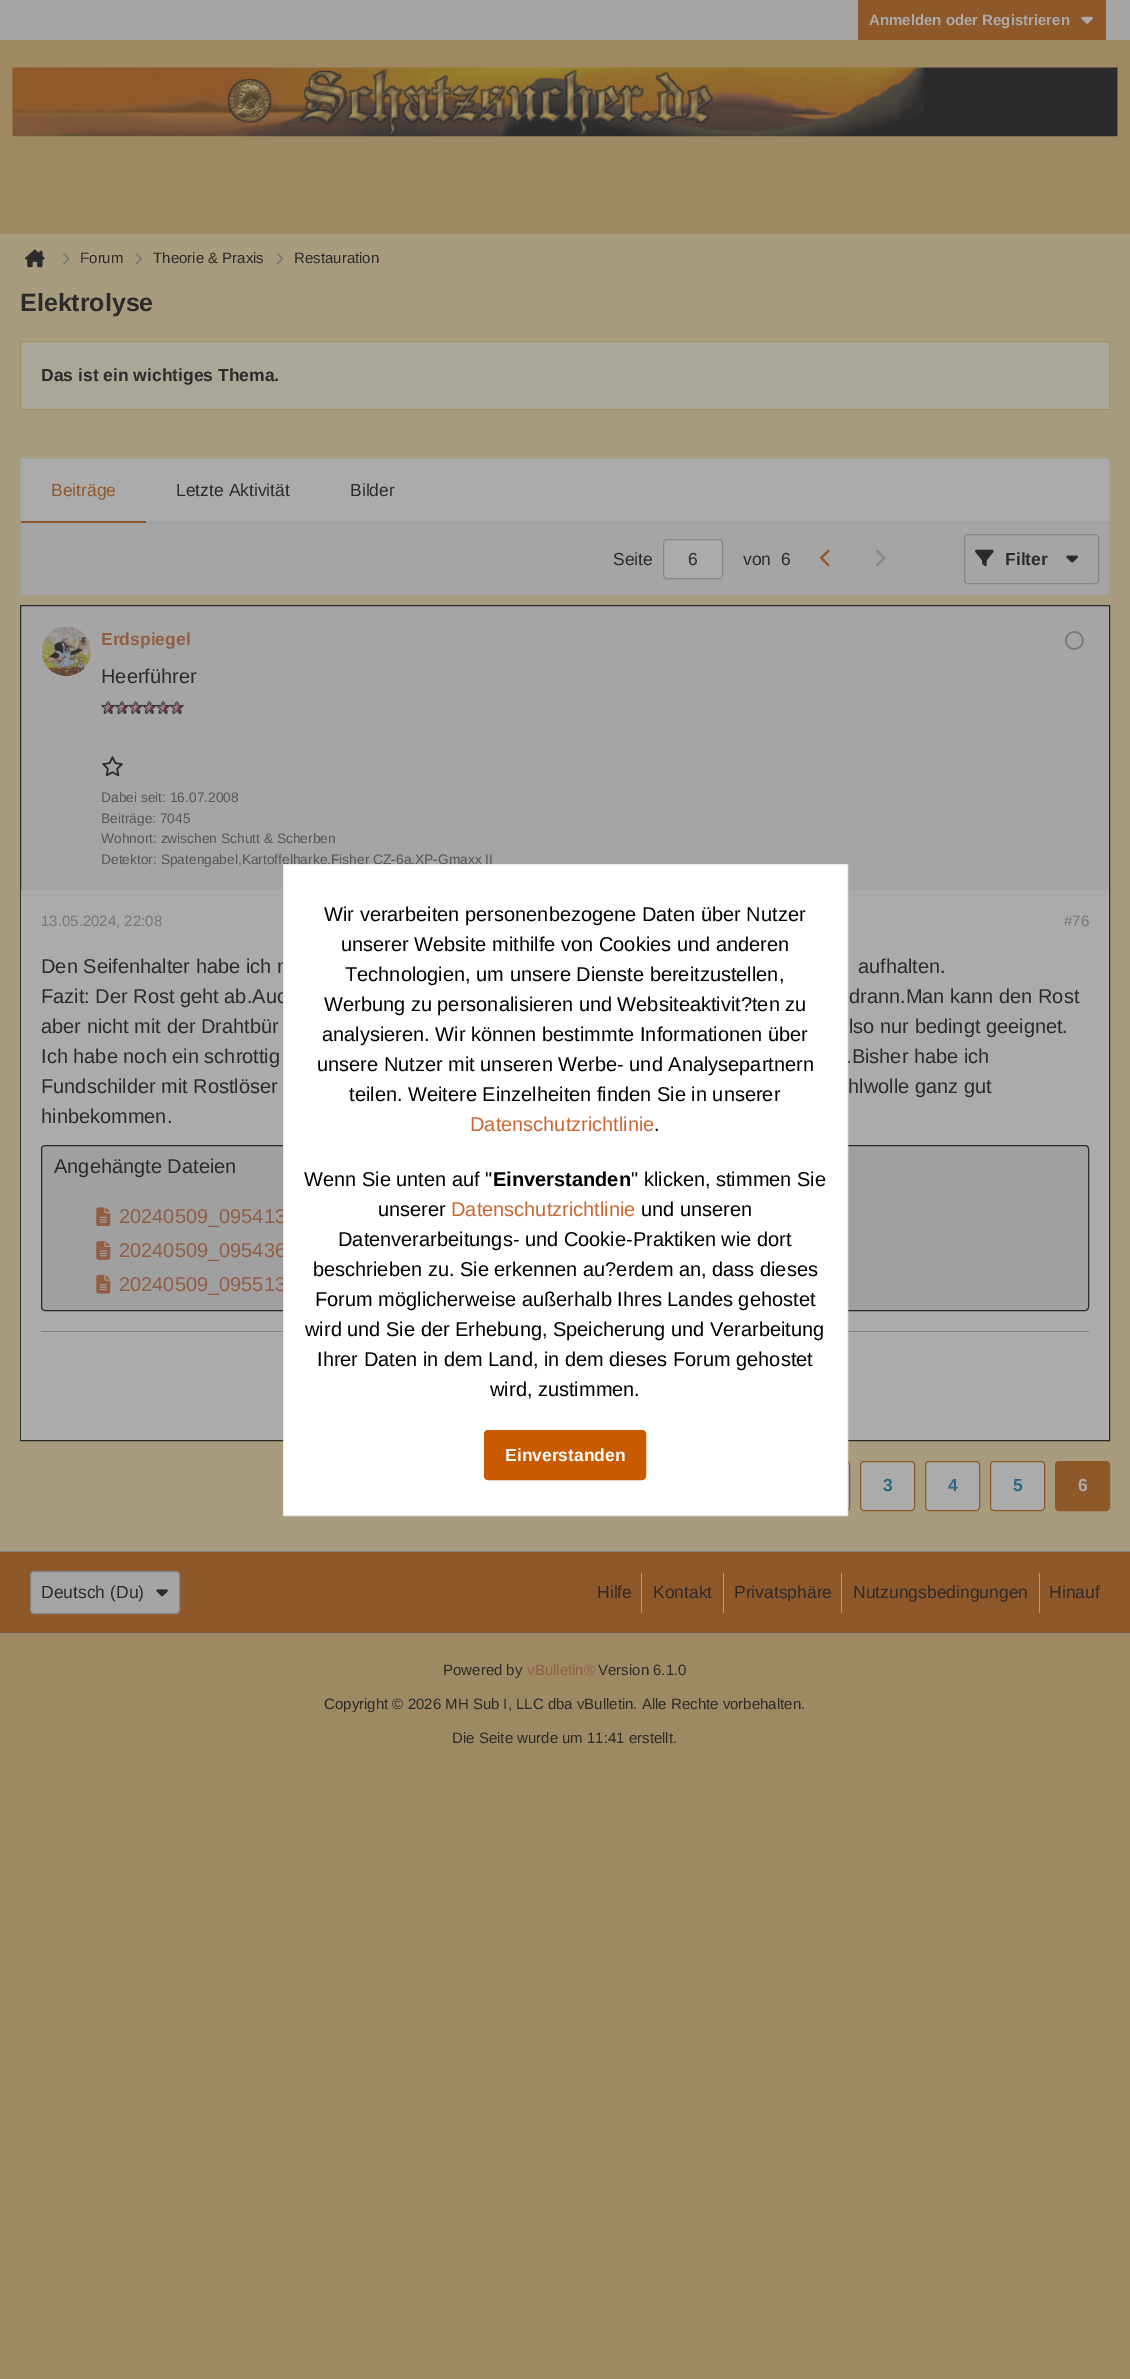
%!PS-Adobe-3.0
%%BoundingBox: 0 0 1130 2379
%%LanguageLevel: 3
%%Pages: 1
%%EndComments
%%BeginProlog
/setink { 3 { 255 div 3 1 roll } repeat setrgbcolor } def
/usefont { [ exch dup neg 0 0 3 -1 roll 0 0 ] selectfont } def
/drawtext { setink usefont moveto show } def
/fillbox { setink rectfill } def
/rrect { 5 dict begin { /r /h /w /y /x } { exch def } forall
  x r add y moveto x w add y 2 copy h add r arct x w add y h add x 1 index r arct
  x y h add x y r arct x y 2 copy exch w add exch r arct closepath end } def
/drawimage { 5 dict begin { /h /w /y /x /name } { exch def } forall
  gsave x y translate w h scale
  w h 8 [w 0 0 h 0 0] name (r) file false 3 colorimage grestore end } def
%%EndProlog
%%BeginSetup
<< /PageSize [1130 2379] >> setpagedevice
%%EndSetup
%%Page: 1 1
0 2379 translate 1 -1 scale
4 setmiterlimit
0 0 1130 2379 159 137 98 fillbox
0 0 1130 40 166 165 165 fillbox
858 0 248 40 143 88 43 fillbox
(Anmelden oder Registrieren) 869 25 /LiberationSans-Bold 15 171 171 171 drawtext
(assets/img1.rgb) 1081 16 12 8 drawimage
(assets/img2.rgb) 12 67 1106 70 drawimage
0 234 1130 1317 167 156 125 fillbox
(assets/img3.rgb) 25 249 20 19 drawimage
(assets/img4.rgb) 63 253 7 12 drawimage
(Forum) 80 263 /LiberationSans-Regular 15 44 43 43 drawtext
(assets/img5.rgb) 135 253 7 12 drawimage
(Theorie & Praxis) 153 263 /LiberationSans-Regular 15 44 43 43 drawtext
(assets/img6.rgb) 276 253 8 12 drawimage
(Restauration) 294 263 /LiberationSans-Regular 15 44 43 43 drawtext
(Elektrolyse) 20 311 /LiberationSans-Bold 25 44 43 43 drawtext
169 167 151 setink
20.5 341.5 moveto 1109.5 341.5 lineto 1109.5 409.5 lineto 20.5 409.5 lineto closepath gsave fill grestore
156 149 106 setink
stroke
(Das ist ein wichtiges Thema.) 41 381 /LiberationSans-Bold 17.5 44 43 43 drawtext
21 459 1088 62 171 171 171 fillbox
20 458 1090 1 161 160 160 fillbox
1109 458 1 66 161 160 160 fillbox
146 521 964 2 161 160 160 fillbox
20 458 1 66 161 160 160 fillbox
21 521 125 2 143 88 43 fillbox
(Beiträge) 51 496 /LiberationSans-Regular 17.5 143 88 43 drawtext
(Letzte Aktivität) 176 496 /LiberationSans-Regular 17.5 44 43 43 drawtext
(Bilder) 350 496 /LiberationSans-Regular 17.5 44 43 43 drawtext
166 165 165 setink
20.5 523.5 moveto 1109.5 523.5 lineto 1109.5 594.5 lineto 20.5 594.5 lineto closepath gsave fill grestore
161 160 160 setink
stroke
(Seite) 613 565 /LiberationSans-Regular 17.5 44 43 43 drawtext
171 171 171 setink
663.5 539.5 59 39 3.5 rrect gsave fill grestore
135 135 135 setink
stroke
(6) 688 565 /LiberationSans-Regular 17.5 44 43 43 drawtext
(von) 743 565 /LiberationSans-Regular 17.5 44 43 43 drawtext
(6) 781 565 /LiberationSans-Regular 17.5 44 43 43 drawtext
(assets/img7.rgb) 820 549 10 18 drawimage
(assets/img8.rgb) 876 549 10 18 drawimage
135 135 135 setink
964.5 534.5 134 49 3.5 rrect stroke
(assets/img9.rgb) 975 549 19 18 drawimage
(Filter) 1005 565 /LiberationSans-Bold 17.5 44 43 43 drawtext
(assets/img10.rgb) 1066 555 12 8 drawimage
21 606 1088 284 166 165 165 fillbox
43 43 43 setink
20.5 605.5 1089 835 rectstroke
(assets/img11.rgb) 41 626 50 50 drawimage
(Erdspiegel) 101 645 /LiberationSans-Bold 17.5 145 94 69 drawtext
(Heerführer) 101 683 /LiberationSans-Regular 20 44 43 43 drawtext
(assets/img12.rgb) 101 701 83 13 drawimage
(assets/img13.rgb) 102 756 21 21 drawimage
(Dabei seit: 16.07.2008) 101 802 /LiberationSans-Regular 13.75 86 86 86 drawtext
(Beiträge: 7045) 101 823 /LiberationSans-Regular 13.75 86 86 86 drawtext
(Wohnort: zwischen Schutt & Scherben) 101 843 /LiberationSans-Regular 13.75 86 86 86 drawtext
(Detektor: Spatengabel,Kartoffelharke,Fisher CZ-6a,XP-Gmaxx II) 101 864 /LiberationSans-Regular 13.75 86 86 86 drawtext
(assets/img14.rgb) 1065 631 19 19 drawimage
21 890 1088 550 171 171 171 fillbox
(13.05.2024, 22:08) 41 926 /LiberationSans-Regular 15 120 120 120 drawtext
(#76) 1064 926 /LiberationSans-Regular 15 120 120 120 drawtext
(Den Seifenhalter habe ich n) 41 973 /LiberationSans-Regular 20 44 43 43 drawtext
(aufhalten.) 858 973 /LiberationSans-Regular 20 44 43 43 drawtext
(Fazit: Der Rost geht ab.Auc) 41 1003 /LiberationSans-Regular 20 44 43 43 drawtext
(drann.Man kann den Rost) 849 1003 /LiberationSans-Regular 20 44 43 43 drawtext
(aber nicht mit der Drahtbür) 41 1033 /LiberationSans-Regular 20 44 43 43 drawtext
(lso nur bedingt geeignet.) 849 1033 /LiberationSans-Regular 20 44 43 43 drawtext
(Ich habe noch ein schrottig) 41 1063 /LiberationSans-Regular 20 44 43 43 drawtext
(.Bisher habe ich) 846 1063 /LiberationSans-Regular 20 44 43 43 drawtext
(Fundschilder mit Rostlöser) 41 1093 /LiberationSans-Regular 20 44 43 43 drawtext
(hlwolle ganz gut) 848 1093 /LiberationSans-Regular 20 44 43 43 drawtext
(hinbekommen.) 41 1123 /LiberationSans-Regular 20 44 43 43 drawtext
161 160 160 setink
41.5 1145.5 1047 165 3.5 rrect gsave fill grestore
43 43 43 setink
stroke
(Angehängte Dateien) 54 1173 /LiberationSans-Regular 20 44 43 43 drawtext
(assets/img15.rgb) 96 1207 15 20 drawimage
(20240509_095413) 119 1223 /LiberationSans-Regular 20 145 94 69 drawtext
(assets/img16.rgb) 96 1241 15 19 drawimage
(20240509_095436) 119 1257 /LiberationSans-Regular 20 145 94 69 drawtext
(assets/img17.rgb) 96 1274 15 20 drawimage
(20240509_095513) 119 1291 /LiberationSans-Regular 20 145 94 69 drawtext
41 1331 1048 1 129 130 131 fillbox
171 171 171 setink
795.5 1461.5 54 49 3.5 rrect gsave fill grestore
143 88 43 setink
stroke
171 171 171 setink
860.5 1461.5 54 49 3.5 rrect gsave fill grestore
143 88 43 setink
stroke
(3) 883 1491 /LiberationSans-Bold 17.5 43 105 131 drawtext
171 171 171 setink
925.5 1461.5 54 49 3.5 rrect gsave fill grestore
143 88 43 setink
stroke
(4) 948 1491 /LiberationSans-Bold 17.5 43 105 131 drawtext
171 171 171 setink
990.5 1461.5 54 49 3.5 rrect gsave fill grestore
143 88 43 setink
stroke
(5) 1013 1491 /LiberationSans-Bold 17.5 43 105 131 drawtext
143 88 43 setink
1055.5 1461.5 54 49 3.5 rrect gsave fill grestore
stroke
(6) 1078 1491 /LiberationSans-Bold 17.5 171 171 171 drawtext
0 1552 1130 81 143 88 43 fillbox
0 1551 1130 1 135 135 135 fillbox
0 1633 1130 1 135 135 135 fillbox
166 165 165 setink
30.5 1571.5 149 42 3.5 rrect gsave fill grestore
135 135 135 setink
stroke
(Deutsch \(Du\)) 41 1598 /LiberationSans-Regular 17.5 44 43 43 drawtext
(assets/img18.rgb) 156 1589 12 8 drawimage
(Hilfe) 597 1598 /LiberationSans-Regular 17.5 44 43 43 drawtext
641 1573 1 40 161 160 160 fillbox
(Kontakt) 653 1598 /LiberationSans-Regular 17.5 44 43 43 drawtext
723 1573 1 40 161 160 160 fillbox
(Privatsphäre) 734 1598 /LiberationSans-Regular 17.5 44 43 43 drawtext
841 1573 1 40 161 160 160 fillbox
(Nutzungsbedingungen) 853 1598 /LiberationSans-Regular 17.5 44 43 43 drawtext
1039 1573 1 40 161 160 160 fillbox
(Hinauf) 1049 1598 /LiberationSans-Regular 17.5 44 43 43 drawtext
(Powered by) 443 1675 /LiberationSans-Regular 15 44 43 43 drawtext
(vBulletin®) 527 1675 /LiberationSans-Regular 15 145 94 69 drawtext
(Version 6.1.0) 598 1675 /LiberationSans-Regular 15 44 43 43 drawtext
(Copyright © 2026 MH Sub I, LLC dba vBulletin. Alle Rechte vorbehalten.) 324 1709 /LiberationSans-Regular 15 44 43 43 drawtext
(Die Seite wurde um 11:41 erstellt.) 452 1743 /LiberationSans-Regular 15 44 43 43 drawtext
255 255 255 setink
283.5 864.5 moveto 847.5 864.5 lineto 847.5 1515.5 lineto 283.5 1515.5 lineto closepath gsave fill grestore
236 234 234 setink
stroke
(Wir verarbeiten personenbezogene Daten über Nutzer) 324 921 /LiberationSans-Regular 20 0 0 0 drawtext
(unserer Website mithilfe von Cookies und anderen) 341 951 /LiberationSans-Regular 20 0 0 0 drawtext
(Technologien, um unsere Dienste bereitzustellen,) 345 981 /LiberationSans-Regular 20 0 0 0 drawtext
(Werbung zu personalisieren und Websiteaktivit?ten zu) 324 1011 /LiberationSans-Regular 20 0 0 0 drawtext
(analysieren. Wir können bestimmte Informationen über) 322 1041 /LiberationSans-Regular 20 0 0 0 drawtext
(unsere Nutzer mit unseren Werbe- und Analysepartnern) 317 1071 /LiberationSans-Regular 20 0 0 0 drawtext
(teilen. Weitere Einzelheiten finden Sie in unserer) 349 1101 /LiberationSans-Regular 20 0 0 0 drawtext
(Datenschutzrichtlinie) 470 1131 /LiberationSans-Regular 20 204 102 51 drawtext
(.) 654 1131 /LiberationSans-Regular 20 0 0 0 drawtext
(Wenn Sie unten auf ") 304 1186 /LiberationSans-Regular 20 0 0 0 drawtext
(Einverstanden) 493 1186 /LiberationSans-Bold 20 0 0 0 drawtext
(" klicken, stimmen Sie) 631 1186 /LiberationSans-Regular 20 0 0 0 drawtext
(unserer) 378 1216 /LiberationSans-Regular 20 0 0 0 drawtext
(Datenschutzrichtlinie) 451 1216 /LiberationSans-Regular 20 204 102 51 drawtext
(und unseren) 641 1216 /LiberationSans-Regular 20 0 0 0 drawtext
(Datenverarbeitungs- und Cookie-Praktiken wie dort) 338 1246 /LiberationSans-Regular 20 0 0 0 drawtext
(beschrieben zu. Sie erkennen au?erdem an, dass dieses) 313 1276 /LiberationSans-Regular 20 0 0 0 drawtext
(Forum möglicherweise außerhalb Ihres Landes gehostet) 315 1306 /LiberationSans-Regular 20 0 0 0 drawtext
(wird und Sie der Erhebung, Speicherung und Verarbeitung) 305 1336 /LiberationSans-Regular 20 0 0 0 drawtext
(Ihrer Daten in dem Land, in dem dieses Forum gehostet) 317 1366 /LiberationSans-Regular 20 0 0 0 drawtext
(wird, zustimmen.) 490 1396 /LiberationSans-Regular 20 0 0 0 drawtext
200 90 0 setink
484.5 1430.5 161 49 3.5 rrect gsave fill grestore
stroke
(Einverstanden) 505 1461 /LiberationSans-Bold 17.5 255 255 255 drawtext
showpage
%%EOF
